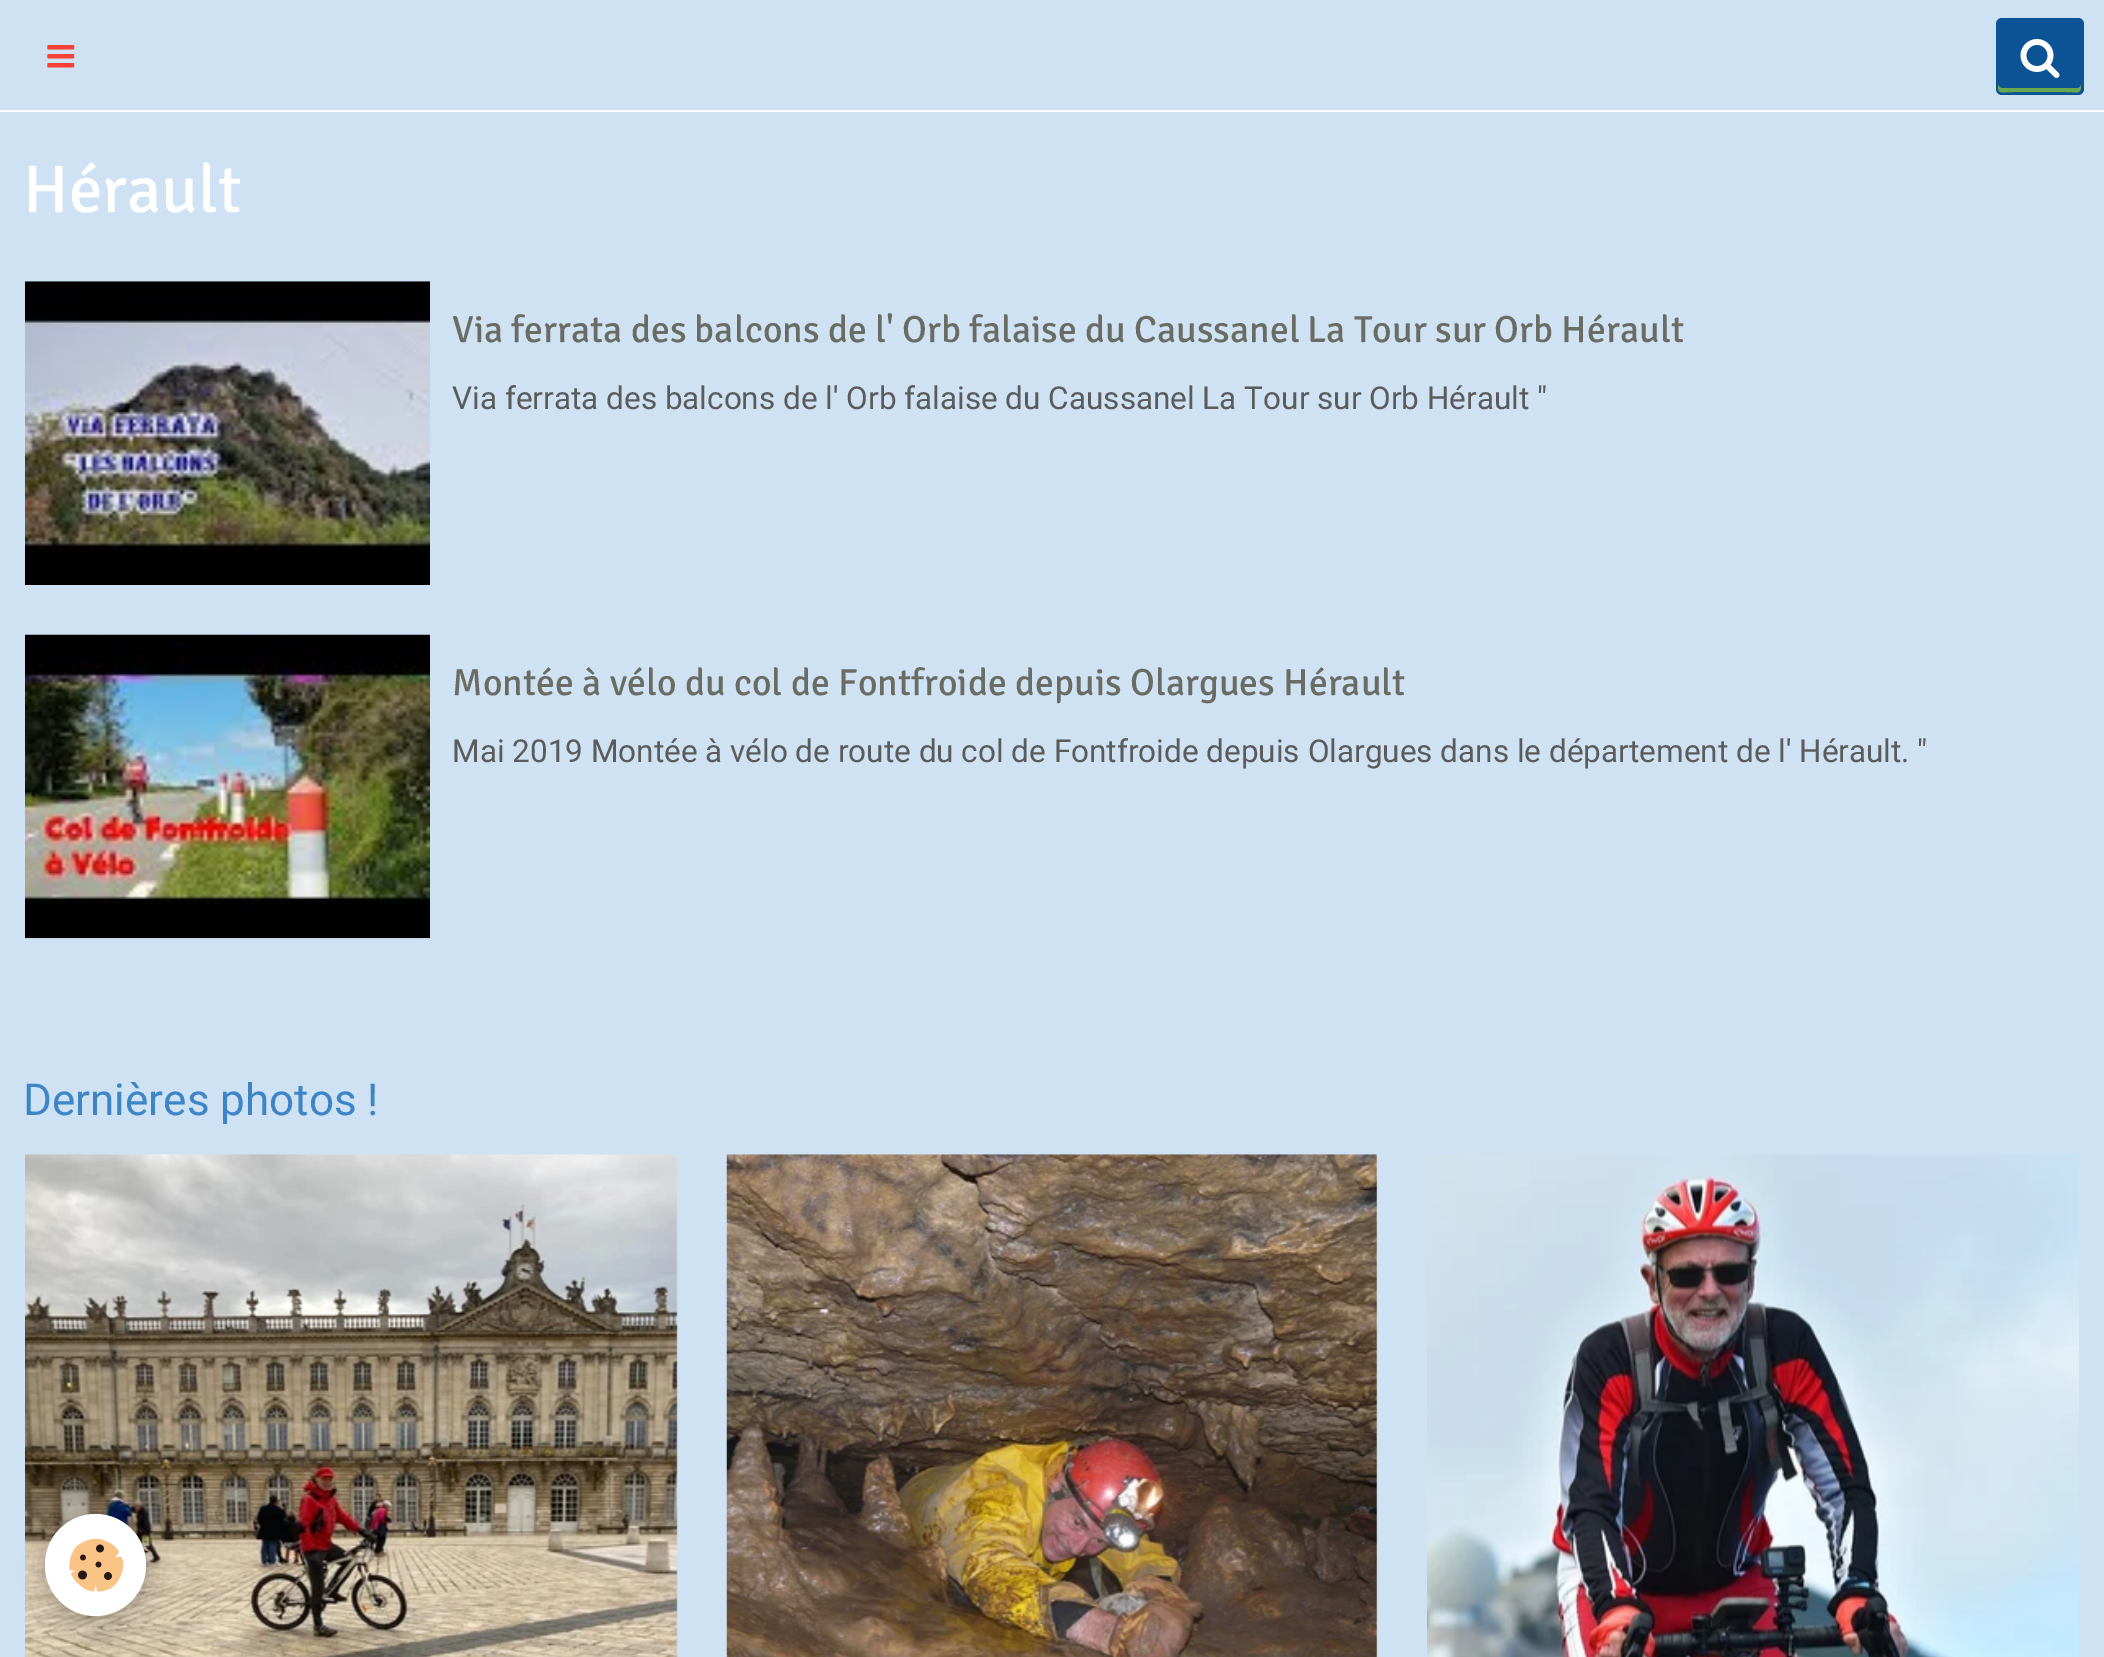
%!PS-Adobe-3.0
%%BoundingBox: 0 0 2104 1657
%%LanguageLevel: 3
%%Pages: 1
%%EndComments
%%BeginProlog
/setink { 3 { 255 div 3 1 roll } repeat setrgbcolor } def
/usefont { [ exch dup neg 0 0 3 -1 roll 0 0 ] selectfont } def
/drawtext { setink usefont moveto show } def
/fillbox { setink rectfill } def
/setalpha { dup .setfillconstantalpha .setstrokeconstantalpha } def
/rrect { 5 dict begin { /r /h /w /y /x } { exch def } forall
  x r add y moveto x w add y 2 copy h add r arct x w add y h add x 1 index r arct
  x y h add x y r arct x y 2 copy exch w add exch r arct closepath end } def
/softshadow { 12 dict begin { /a /b /q /h /w /y /x } { exch def } forall gsave /was 0 def
  9 -2 -9 { dup b mul 4 div /e exch def 1 sub .425 mul 2.718 exch exp 1 add a .99 .min exch div /now exch def
    1 1 now sub 1 was sub div sub setalpha /was now def
    w h .min e 2 mul add 0 gt { x e sub y e sub w e 2 mul add h e 2 mul add
      q e add b .6 mul add w h .min 2 div e add .min 0 .max rrect fill } if } for grestore end } def
/drawimage { 5 dict begin { /h /w /y /x /name } { exch def } forall
  gsave x y translate w h scale
  w h 8 [w 0 0 h 0 0] name (r) file false 3 colorimage grestore end } def
%%EndProlog
%%BeginSetup
<< /PageSize [2104 1657] /PageUsesTransparency true >> setpagedevice
%%EndSetup
%%Page: 1 1
0 .pushpdf14devicefilter
0 1657 translate 1 -1 scale
4 setmiterlimit
0 0 2104 1657 207 226 243 fillbox
0 110 2104 2 255 255 255 fillbox
(assets/img1.rgb) 47 45 28 23 drawimage
11 83 148 setink
1996 18 88 77 6 rrect fill
106 168 79 setink
1998 84 moveto 1998 95 2000 92 2014 92 curveto 2065 92 lineto 2079 92 2081 95 2081 84 curveto 2081 86 2080 88 2078 88 curveto 2002 88 lineto 2000 88 1998 86 1998 84 curveto closepath fill
(assets/img2.rgb) 2020 39 40 39 drawimage
(Hérault) 23 212 /Signika-Regular 67.5 255 255 255 drawtext
(assets/img3.rgb) 25 281 405 304 drawimage
(Via ferrata des balcons de l' Orb) 452 342 /Signika-Regular 37.8 106 108 100 drawtext
(falaise du Caussanel) 969 342 /Signika-Regular 37.8 106 108 100 drawtext
(La Tour sur Orb Hérault) 1307 342 /Signika-Regular 37.8 106 108 100 drawtext
(Via ferrata des balcons de l' Orb falaise du Caussanel La Tour sur Orb Hérault ") 452 409 /Roboto-Regular 31.5 91 91 91 drawtext
(assets/img4.rgb) 25 634 405 305 drawimage
(Montée à vélo du col de Fontfroide depuis Olargues Hérault) 452 695 /Signika-Regular 37.8 106 108 100 drawtext
(Mai 2019 Montée à vélo de route du col de Fontfroide depuis Olargues dans le département de l' Hérault. ") 452 762 /Roboto-Regular 31.5 91 91 91 drawtext
(Dernières photos !) 23 1115 /Roboto-Regular 44 61 133 198 drawtext
(assets/img5.rgb) 25 1154 653 503 drawimage
(assets/img6.rgb) 726 1154 652 503 drawimage
(assets/img7.rgb) 1427 1154 652 503 drawimage
0 0 0 setink
45 1521 101 101 50.5 11 0.24 softshadow
255 255 255 setink
45 1514 101 102 50.5 rrect fill
(assets/img8.rgb) 69 1538 55 54 drawimage
.poppdf14devicefilter showpage
%%EOF
